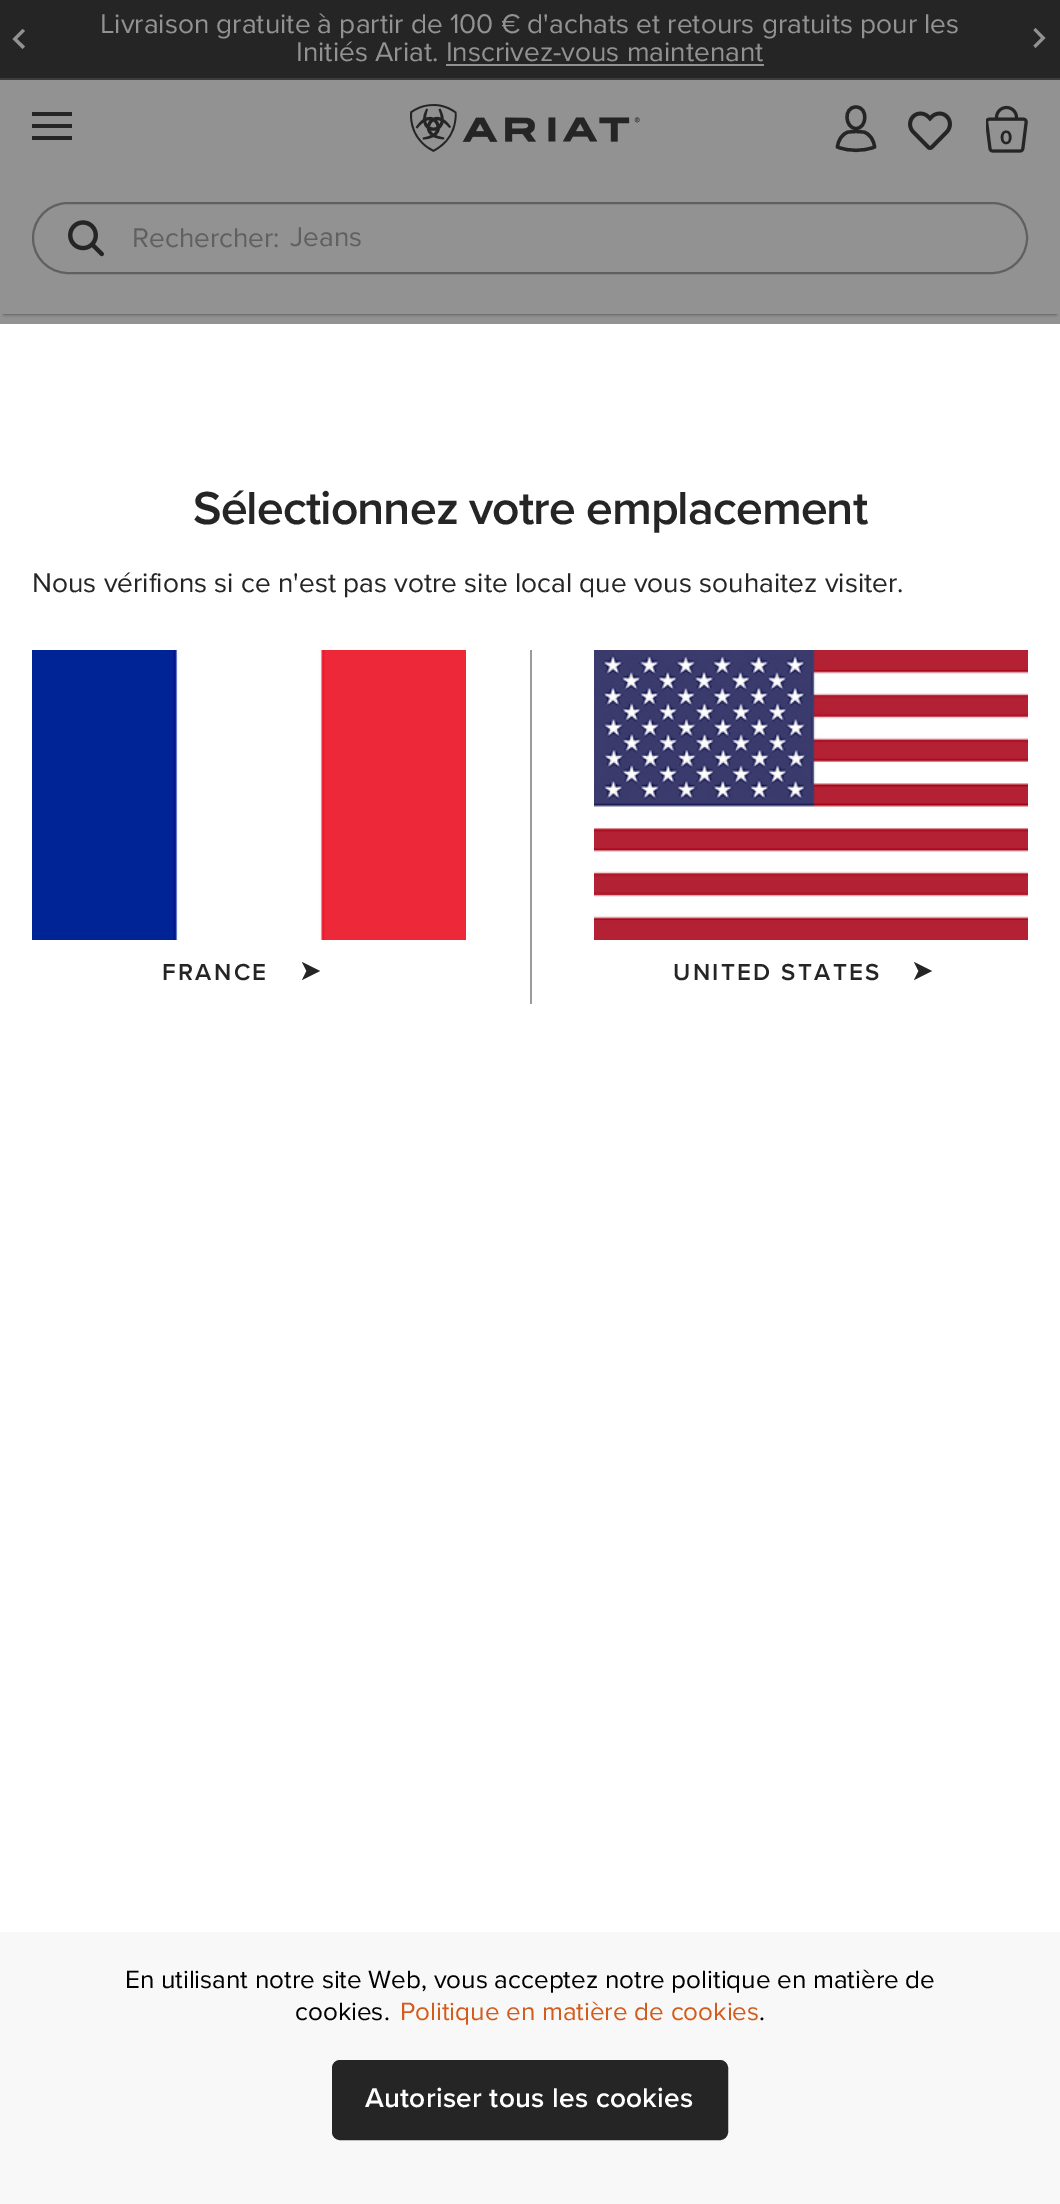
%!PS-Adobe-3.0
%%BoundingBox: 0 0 1060 2204
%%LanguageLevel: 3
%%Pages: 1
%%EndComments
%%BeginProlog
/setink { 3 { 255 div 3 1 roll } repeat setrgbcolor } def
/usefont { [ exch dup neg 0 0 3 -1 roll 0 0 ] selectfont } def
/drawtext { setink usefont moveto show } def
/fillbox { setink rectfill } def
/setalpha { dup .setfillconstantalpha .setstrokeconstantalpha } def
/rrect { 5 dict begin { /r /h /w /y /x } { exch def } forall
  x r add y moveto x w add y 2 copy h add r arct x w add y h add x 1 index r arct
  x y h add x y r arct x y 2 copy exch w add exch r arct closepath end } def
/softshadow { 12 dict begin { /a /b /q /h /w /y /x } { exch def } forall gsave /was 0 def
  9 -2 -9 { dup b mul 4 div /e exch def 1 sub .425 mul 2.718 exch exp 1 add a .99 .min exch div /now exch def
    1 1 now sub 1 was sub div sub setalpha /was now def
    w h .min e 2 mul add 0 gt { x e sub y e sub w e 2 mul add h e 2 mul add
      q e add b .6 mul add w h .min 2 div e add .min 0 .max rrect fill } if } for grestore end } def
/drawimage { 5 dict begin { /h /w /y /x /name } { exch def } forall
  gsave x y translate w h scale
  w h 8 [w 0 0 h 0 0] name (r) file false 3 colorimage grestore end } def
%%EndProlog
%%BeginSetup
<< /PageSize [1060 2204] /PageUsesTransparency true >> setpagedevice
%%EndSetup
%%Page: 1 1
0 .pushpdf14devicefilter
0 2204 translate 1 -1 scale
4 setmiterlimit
0 0 1060 2204 146 146 146 fillbox
gsave
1 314 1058 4 rectclip
19 19 19 setink
4 8 1052 306 0 2 0.65 softshadow
grestore
0 0 1060 78 37 37 37 fillbox
0 78 1060 2 61 61 61 fillbox
146 146 146 setink
22.5 49 moveto 25 46.5 lineto 17 39 lineto 25 31 lineto 22.5 29 lineto 12.5 39 lineto closepath fill
(Livraison gratuite à partir de 100 € d'achats et retours gratuits pour les) 100 33 /ProximaNova-Regular 28 146 146 146 drawtext
(Initiés Ariat. Inscrivez-vous maintenant) 296 61 /ProximaNova-Regular 28 146 146 146 drawtext
446 64 318 2 146 146 146 fillbox
1035.5 28 moveto 1033.5 30 lineto 1041 38 lineto 1033.5 45.5 lineto 1035.5 48 lineto 1045.5 38 lineto closepath fill
32 112 40 4 37 37 37 fillbox
32 124 40 4 37 37 37 fillbox
32 136 40 4 37 37 37 fillbox
(assets/img1.rgb) 410 104 230 48 drawimage
3.3 setlinewidth
2 setlinecap
856 128.5 moveto 845 128.5 843 107 856 107 curveto 868.5 107 867 128.5 856 128.5 curveto closepath 856 131.5 moveto 863.5 132 lineto 870 133.5 874 140.5 874.5 147 curveto 863 151.5 849 151.5 837.5 147 curveto 838 140.5 842 133.5 848.5 132 curveto closepath stroke
(assets/img2.rgb) 908 111 44 39 drawimage
(assets/img3.rgb) 986 105 42 48 drawimage
/ProximaNova-Bold 20 usefont
1000 144 moveto 1 0 (0) ashow
96 96 96 setink
2 setlinewidth
0 setlinecap
33 203 994 70 35 rrect stroke
(assets/img4.rgb) 68 220 36 37 drawimage
(Rechercher:) 132 247 /ProximaNova-Regular 28 96 96 96 drawtext
(Jeans) 290 246 /ProximaNova-Regular 28 96 96 96 drawtext
0 324 1060 1608 255 255 255 fillbox
/ProximaNova-SemiBold 48 usefont
37 37 37 setink
193 524 moveto -0.95 0 (Sélectionnez votre emplacement) ashow
(Nous vérifions si ce n'est pas votre site local que vous souhaitez visiter.) 32 592 /ProximaNova-Regular 28 37 37 37 drawtext
(assets/img5.rgb) 32 650 434 290 drawimage
/ProximaNova-SemiBold 24 usefont
162 980 moveto 2.4 0 (FRANCE) ashow
320 971 moveto 302 980 lineto 306.5 971 lineto 302 962 lineto closepath fill
530 650 2 354 155 155 155 fillbox
(assets/img6.rgb) 594 650 434 290 drawimage
37 37 37 setink
673 980 moveto 2.4 0 (UNITED STATES) ashow
932 971 moveto 914 980 lineto 918.5 971 lineto 914 962 lineto closepath fill
0 1932 1060 272 248 248 248 fillbox
(En utilisant notre site Web, vous acceptez notre politique en matière de) 125 1988 /ProximaNova-Regular 26 0 0 0 drawtext
(cookies.) 295 2020 /ProximaNova-Regular 26 0 0 0 drawtext
(Politique en matière de cookies) 400 2020 /ProximaNova-Regular 26 211 92 28 drawtext
(.) 759 2020 /ProximaNova-Regular 26 0 0 0 drawtext
37 37 37 setink
333 2061 394 78 7 rrect gsave fill grestore
stroke
/ProximaNova-SemiBold 28 usefont
255 255 255 setink
365 2107 moveto 0.25 0 (Autoriser tous les cookies) ashow
.poppdf14devicefilter showpage
%%EOF
